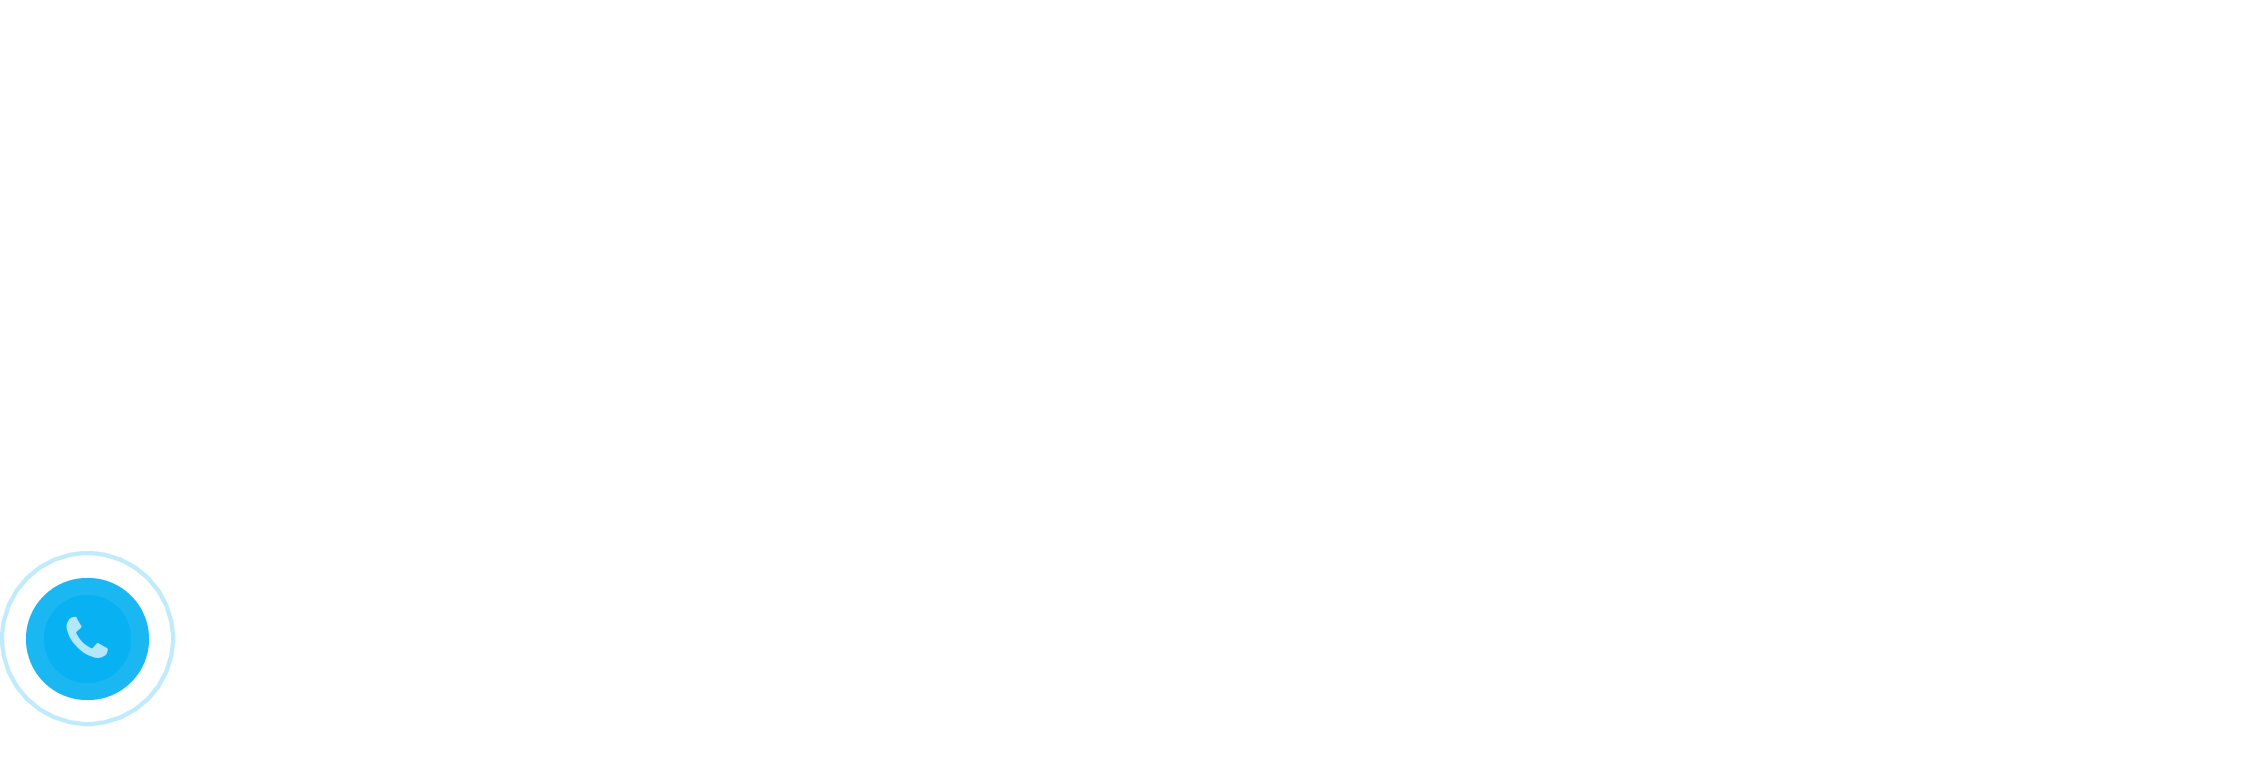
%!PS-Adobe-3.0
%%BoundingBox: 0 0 2249 760
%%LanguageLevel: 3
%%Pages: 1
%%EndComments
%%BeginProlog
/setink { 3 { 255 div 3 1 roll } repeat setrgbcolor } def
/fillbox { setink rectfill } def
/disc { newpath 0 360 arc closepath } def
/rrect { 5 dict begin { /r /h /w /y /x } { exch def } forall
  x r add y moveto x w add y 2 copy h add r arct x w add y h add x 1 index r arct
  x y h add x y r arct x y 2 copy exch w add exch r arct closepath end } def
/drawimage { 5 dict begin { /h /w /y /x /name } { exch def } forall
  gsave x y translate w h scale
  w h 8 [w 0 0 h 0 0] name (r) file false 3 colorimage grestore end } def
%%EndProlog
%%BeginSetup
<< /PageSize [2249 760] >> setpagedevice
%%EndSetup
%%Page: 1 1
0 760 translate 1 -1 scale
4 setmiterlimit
0 0 2249 760 255 255 255 fillbox
191 235 252 setink
4 setlinewidth
87.5 638.5 85.5 disc stroke
26 183 243 setink
26 578 123 122 61 rrect fill
8 177 242 setink
44 595 87 88 43.5 rrect fill
(assets/img1.rgb) 66 616 42 42 drawimage
showpage
%%EOF
